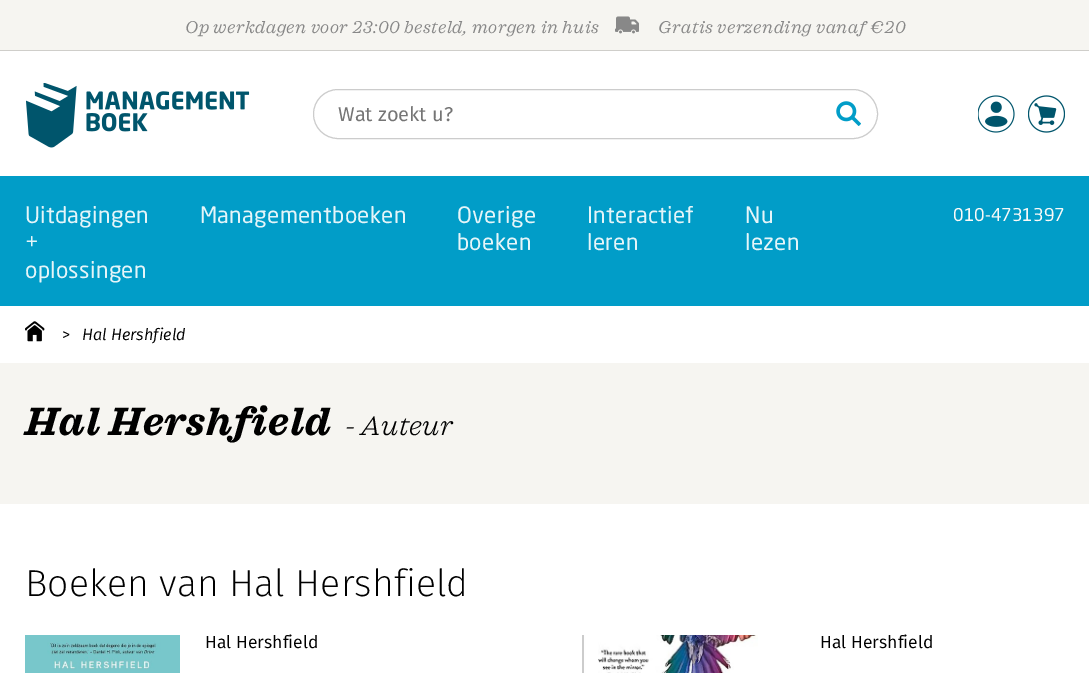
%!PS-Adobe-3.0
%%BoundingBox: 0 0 1089 673
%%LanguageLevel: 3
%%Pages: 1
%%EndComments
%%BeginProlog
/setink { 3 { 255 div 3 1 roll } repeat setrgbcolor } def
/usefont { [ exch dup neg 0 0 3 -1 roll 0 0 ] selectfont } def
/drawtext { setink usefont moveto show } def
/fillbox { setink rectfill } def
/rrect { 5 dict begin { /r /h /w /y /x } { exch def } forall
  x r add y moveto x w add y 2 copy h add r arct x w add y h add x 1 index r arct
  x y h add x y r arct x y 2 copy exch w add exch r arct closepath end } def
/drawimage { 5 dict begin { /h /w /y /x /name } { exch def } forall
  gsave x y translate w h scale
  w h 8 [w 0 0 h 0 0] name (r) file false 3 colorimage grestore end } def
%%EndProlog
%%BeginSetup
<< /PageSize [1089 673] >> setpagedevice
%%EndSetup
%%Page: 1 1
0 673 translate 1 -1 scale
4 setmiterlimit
0 0 1089 673 255 255 255 fillbox
0 0 1089 50 246 245 241 fillbox
0 50 1089 1 207 206 202 fillbox
/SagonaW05-Italic 17.5 usefont
136 136 136 setink
185 33 moveto 0.55 0 (Op werkdagen voor 23:00 besteld, morgen in huis) ashow
(assets/img1.rgb) 615 16 24 18 drawimage
658 33 moveto 0.55 0 (Gratis verzending vanaf €20) ashow
(assets/img2.rgb) 26 83 224 65 drawimage
(assets/img3.rgb) 836 101 25 25 drawimage
204 204 204 setink
313.5 89.5 564 49 24.5 rrect stroke
(Wat zoekt u?) 338 121 /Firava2-Regular 20 117 117 117 drawtext
(assets/img4.rgb) 978 95 37 38 drawimage
(assets/img5.rgb) 1028 95 37 38 drawimage
0 176 1089 130 1 157 200 fillbox
/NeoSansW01-Regular 22.5 usefont
229 245 249 setink
25 223 moveto 0.3 0 (Uitdagingen) ashow
25 250 moveto 0.3 0 (+) ashow
25 278 moveto 0.3 0 (oplossingen) ashow
200 223 moveto 0.3 0 (Managementboeken) ashow
457 223 moveto 0.3 0 (Overige) ashow
457 250 moveto 0.3 0 (boeken) ashow
587 223 moveto 0.3 0 (Interactief) ashow
587 250 moveto 0.3 0 (leren) ashow
745 223 moveto 0.3 0 (Nu) ashow
745 250 moveto 0.3 0 (lezen) ashow
(010-4731397) 953 221 /NeoSansW01-Regular 17.5 250 250 248 drawtext
(assets/img6.rgb) 25 321 20 21 drawimage
(>) 62 340 /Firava-Light 16.25 0 0 0 drawtext
(Hal Hershfield) 82 340 /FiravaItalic-LightItalic 16.25 0 0 0 drawtext
0 363 1089 141 246 245 241 fillbox
/SagonaW05-BoldItalic 40 usefont
0 0 0 setink
25 435 moveto 0.75 0 (Hal Hershfield) ashow
/SagonaW05-LightItalic 27.5 usefont
345 435 moveto 0.5 0 (- Auteur) ashow
(Boeken van Hal Hershfield) 25 596 /Firava-ExtraLight 37.5 0 0 0 drawtext
(assets/img7.rgb) 25 635 155 38 drawimage
(Hal Hershfield) 205 648 /Firava-Regular 17.5 0 0 0 drawtext
(assets/img8.rgb) 582 635 176 38 drawimage
(Hal Hershfield) 820 648 /Firava-Regular 17.5 0 0 0 drawtext
showpage
%%EOF
